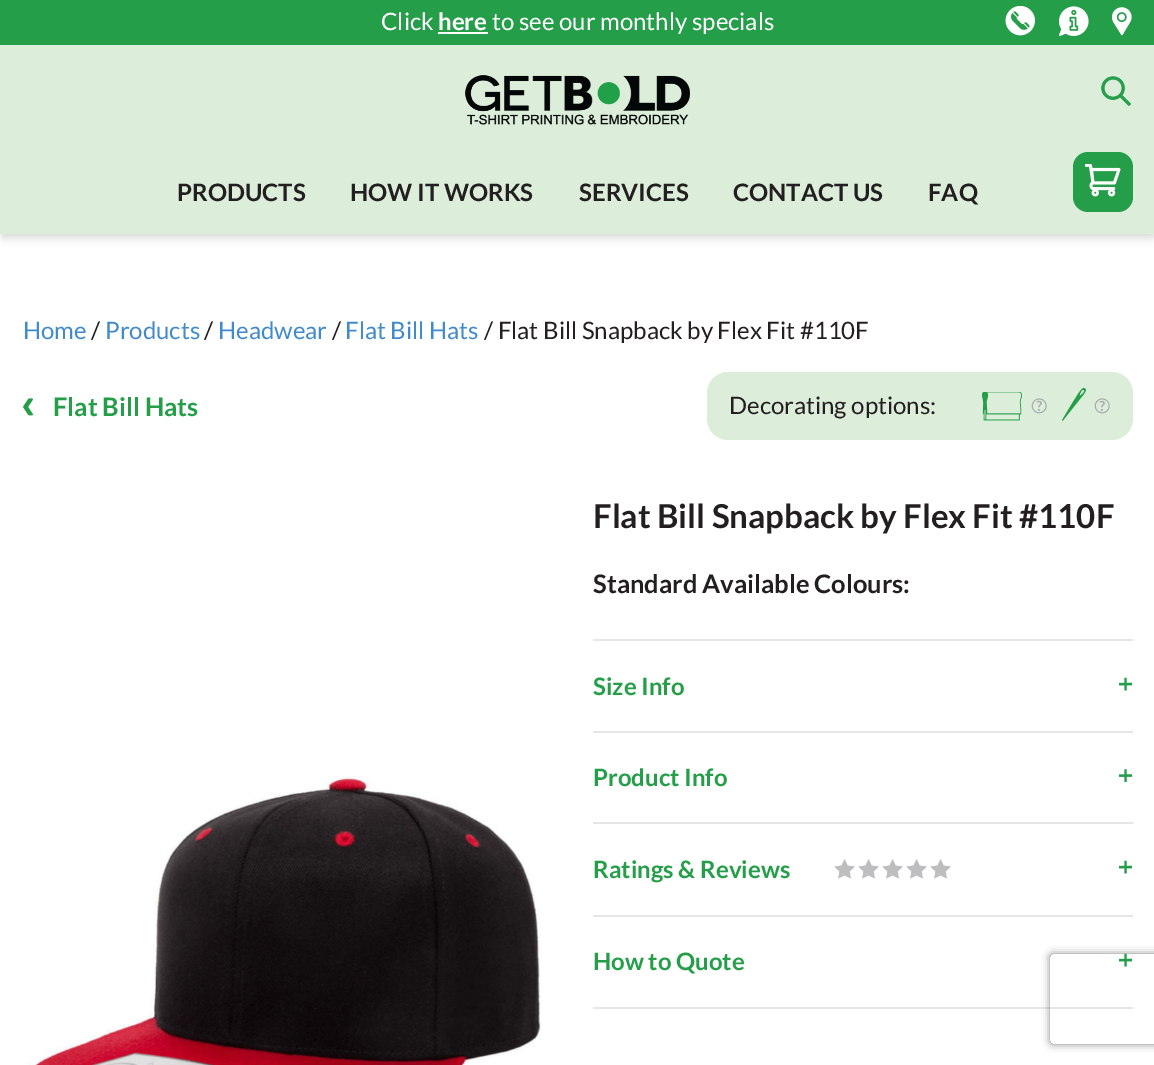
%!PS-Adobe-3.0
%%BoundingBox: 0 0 1154 1065
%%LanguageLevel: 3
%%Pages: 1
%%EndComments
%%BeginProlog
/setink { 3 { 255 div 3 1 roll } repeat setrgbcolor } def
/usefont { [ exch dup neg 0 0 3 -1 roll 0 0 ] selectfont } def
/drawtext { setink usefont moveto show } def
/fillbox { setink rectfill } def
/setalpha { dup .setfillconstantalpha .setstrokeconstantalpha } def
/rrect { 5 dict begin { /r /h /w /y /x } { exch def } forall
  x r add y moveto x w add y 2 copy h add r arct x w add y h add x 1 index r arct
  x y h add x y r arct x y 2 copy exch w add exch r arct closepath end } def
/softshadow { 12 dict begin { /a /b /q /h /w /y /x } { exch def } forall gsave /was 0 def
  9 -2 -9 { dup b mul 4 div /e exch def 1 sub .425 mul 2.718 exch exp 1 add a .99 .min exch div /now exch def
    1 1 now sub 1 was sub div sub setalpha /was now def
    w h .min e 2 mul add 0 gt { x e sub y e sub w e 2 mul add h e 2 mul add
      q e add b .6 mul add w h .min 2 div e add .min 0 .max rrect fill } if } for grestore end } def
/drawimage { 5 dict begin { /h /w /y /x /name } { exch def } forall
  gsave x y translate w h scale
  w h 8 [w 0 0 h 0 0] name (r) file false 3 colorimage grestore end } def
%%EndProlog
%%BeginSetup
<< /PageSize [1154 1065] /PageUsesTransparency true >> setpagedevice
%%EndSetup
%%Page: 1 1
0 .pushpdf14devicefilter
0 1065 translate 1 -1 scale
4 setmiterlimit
0 0 1154 1065 255 255 255 fillbox
0 0 1154 45 37 158 73 fillbox
(Click) 381 30 /Lato-Regular 24 255 255 255 drawtext
(here) 438 30 /Lato-Bold 24 255 255 255 drawtext
438 32 50 2 255 255 255 fillbox
(to see our monthly specials) 492 30 /Lato-Regular 24 255 255 255 drawtext
(assets/img1.rgb) 1005 6 30 30 drawimage
(assets/img2.rgb) 1059 6 30 30 drawimage
(assets/img3.rgb) 1112 7 20 29 drawimage
0 0 0 setink
2 50 1152 186 0 3 0.06 softshadow
2 53 1152 186 0 4.5 0.1 softshadow
0 45 1154 189 220 238 218 fillbox
(assets/img4.rgb) 465 75 225 50 drawimage
(assets/img5.rgb) 1101 76 30 30 drawimage
(PRODUCTS) 177 201 /Lato-Bold 24 35 31 32 drawtext
(HOW IT WORKS) 350 201 /Lato-Bold 24 35 31 32 drawtext
(SERVICES) 579 201 /Lato-Bold 24 35 31 32 drawtext
(CONTACT US) 733 201 /Lato-Bold 24 35 31 32 drawtext
(FAQ) 928 201 /Lato-Bold 24 35 31 32 drawtext
37 158 73 setink
1073 152 60 60 15 rrect fill
(assets/img6.rgb) 1085 164 36 33 drawimage
(Home) 23 339 /Lato-Regular 24 66 139 202 drawtext
(/) 91 339 /Lato-Regular 24 35 31 32 drawtext
(Products) 105 339 /Lato-Regular 24 66 139 202 drawtext
(/) 204 339 /Lato-Regular 24 35 31 32 drawtext
(Headwear) 218 339 /Lato-Regular 24 66 139 202 drawtext
(/) 332 339 /Lato-Regular 24 35 31 32 drawtext
(Flat Bill Hats) 345 339 /Lato-Regular 24 66 139 202 drawtext
(/ Flat Bill Snapback by Flex Fit #110F) 484 339 /Lato-Regular 24 35 31 32 drawtext
(assets/img7.rgb) 23 398 10 18 drawimage
(Flat Bill Hats) 53 416 /Lato-Bold 25.5 37 158 73 drawtext
220 238 218 setink
707 372 426 68 21 rrect fill
(Decorating options:) 729 414 /Lato-Regular 24 35 31 32 drawtext
(assets/img8.rgb) 981 392 42 29 drawimage
(assets/img9.rgb) 1031 398 16 16 drawimage
(assets/img10.rgb) 1062 387 24 34 drawimage
(assets/img9.rgb) 1094 398 16 16 drawimage
(assets/img11.rgb) 28 775 513 290 drawimage
(Flat Bill Snapback by Flex Fit #110F) 593 528 /Lato-Bold 33 35 31 32 drawtext
593 639 540 2 230 230 230 fillbox
(Standard Available Colours:) 593 593 /Lato-Bold 25.5 35 31 32 drawtext
593 731 540 2 230 230 230 fillbox
(Size Info) 593 695 /Lato-Bold 24 37 158 73 drawtext
(assets/img12.rgb) 1118 677 15 14 drawimage
593 822 540 2 230 230 230 fillbox
(Product Info) 593 786 /Lato-Bold 24 37 158 73 drawtext
(assets/img13.rgb) 1118 769 15 13 drawimage
593 915 540 2 230 230 230 fillbox
(Ratings & Reviews) 593 878 /Lato-Bold 24 37 158 73 drawtext
(assets/img14.rgb) 834 859 117 20 drawimage
(assets/img12.rgb) 1118 860 15 14 drawimage
593 1007 540 2 230 230 230 fillbox
(How to Quote) 593 970 /Lato-Bold 24 37 158 73 drawtext
(assets/img12.rgb) 1118 953 15 14 drawimage
gsave
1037 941 moveto 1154 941 lineto 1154 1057 lineto 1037 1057 lineto closepath 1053 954 moveto 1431 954 lineto 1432.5 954 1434 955.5 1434 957 curveto 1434 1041 lineto 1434 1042.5 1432.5 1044 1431 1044 curveto 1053 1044 lineto 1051.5 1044 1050 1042.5 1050 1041 curveto 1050 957 lineto 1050 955.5 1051.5 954 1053 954 curveto closepath eoclip newpath
128 128 128 setink
1050 954 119 90 3 4 1 softshadow
grestore
.poppdf14devicefilter showpage
%%EOF
